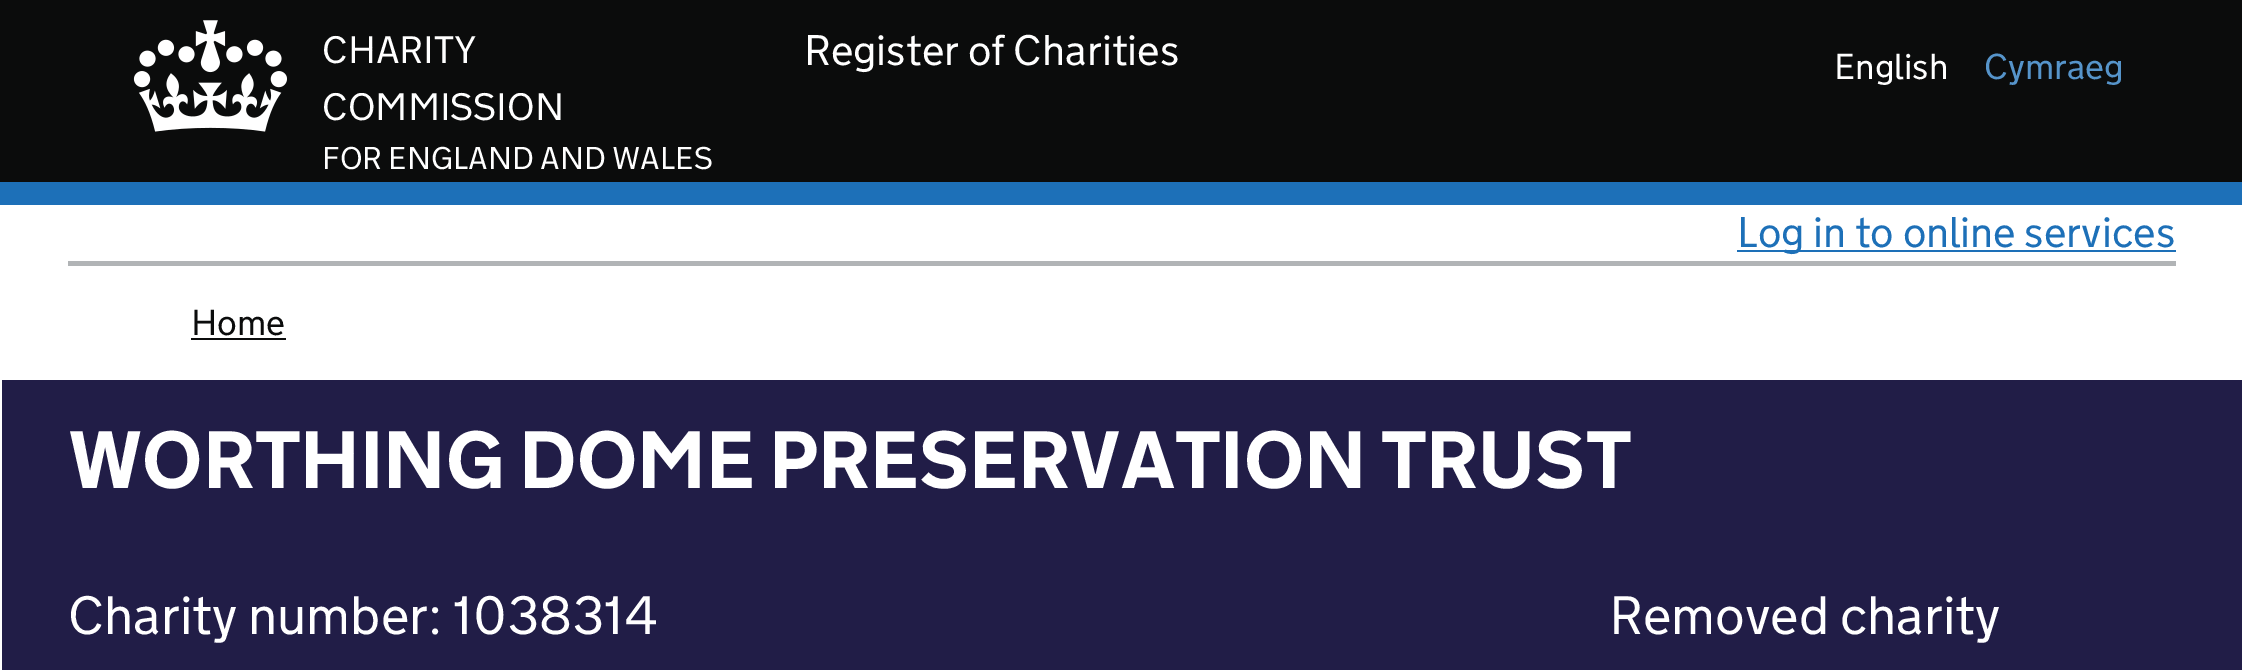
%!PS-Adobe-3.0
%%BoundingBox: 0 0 2242 670
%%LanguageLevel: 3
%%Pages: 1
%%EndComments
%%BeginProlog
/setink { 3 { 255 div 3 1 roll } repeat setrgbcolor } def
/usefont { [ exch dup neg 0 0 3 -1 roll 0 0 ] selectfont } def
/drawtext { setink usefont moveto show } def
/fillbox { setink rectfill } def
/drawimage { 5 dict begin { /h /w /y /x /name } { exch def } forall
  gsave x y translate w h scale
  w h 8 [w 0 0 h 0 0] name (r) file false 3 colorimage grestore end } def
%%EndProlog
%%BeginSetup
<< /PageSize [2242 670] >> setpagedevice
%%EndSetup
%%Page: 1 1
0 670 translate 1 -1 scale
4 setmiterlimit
0 0 2242 670 255 255 255 fillbox
0 0 2242 182 11 12 12 fillbox
0 182 2242 23 29 112 184 fillbox
(assets/img1.rgb) 133 20 154 112 drawimage
(CHARITY) 322 63 /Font-Light 38.25 255 255 255 drawtext
(COMMISSION) 322 120 /Font-Light 38.25 255 255 255 drawtext
(FOR ENGLAND AND WALES) 322 169 /Font-Light 31.5 255 255 255 drawtext
(Register of Charities) 804 65 /Font-Light 42.75 255 255 255 drawtext
(English) 1834 79 /Font-Light 36 255 255 255 drawtext
(Cymraeg) 1984 79 /Font-Light 36 86 148 202 drawtext
68 261 2108 5 177 180 182 fillbox
1737 250 439 2 29 112 184 fillbox
(Log in to online services) 1737 247 /Font-Light 42.75 29 112 184 drawtext
(Home) 191 335 /Font-Light 36 11 12 12 drawtext
191 338 95 2 11 12 12 fillbox
2 380 2240 290 33 29 71 fillbox
(WORTHING DOME PRESERVATION TRUST) 68 488 /Font-Bold 81 255 255 255 drawtext
(Charity number: 1038314) 68 634 /Font-Light 54 255 255 255 drawtext
(Removed charity) 1609 634 /Font-Light 54 255 255 255 drawtext
showpage
%%EOF
